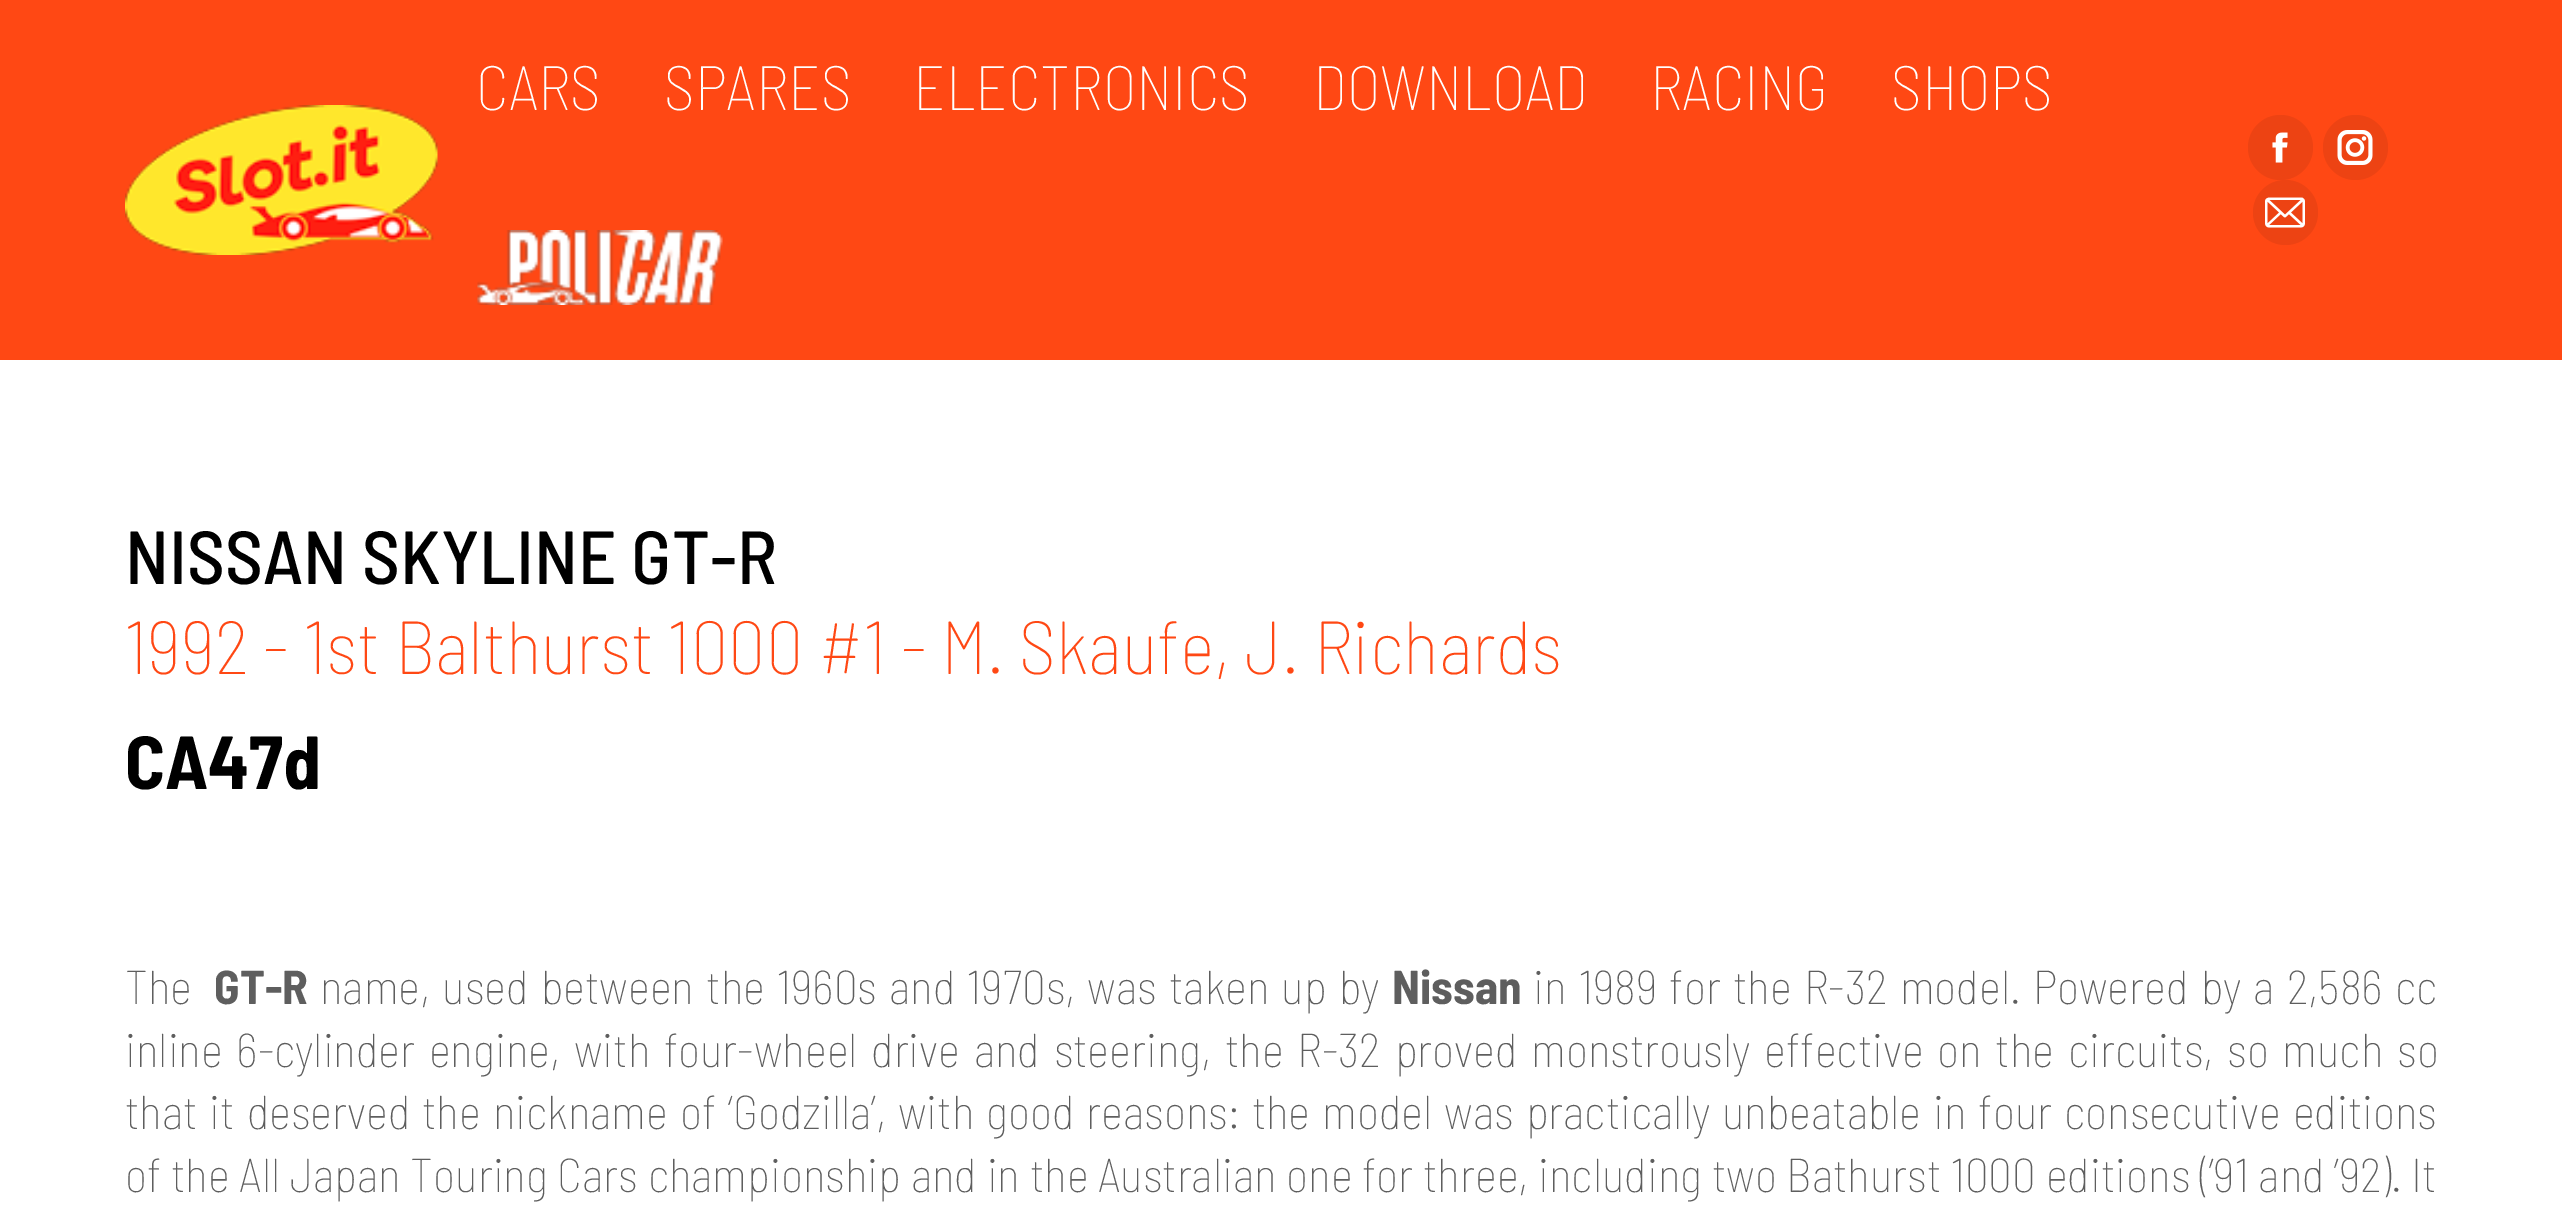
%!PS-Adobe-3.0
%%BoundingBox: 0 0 2562 1216
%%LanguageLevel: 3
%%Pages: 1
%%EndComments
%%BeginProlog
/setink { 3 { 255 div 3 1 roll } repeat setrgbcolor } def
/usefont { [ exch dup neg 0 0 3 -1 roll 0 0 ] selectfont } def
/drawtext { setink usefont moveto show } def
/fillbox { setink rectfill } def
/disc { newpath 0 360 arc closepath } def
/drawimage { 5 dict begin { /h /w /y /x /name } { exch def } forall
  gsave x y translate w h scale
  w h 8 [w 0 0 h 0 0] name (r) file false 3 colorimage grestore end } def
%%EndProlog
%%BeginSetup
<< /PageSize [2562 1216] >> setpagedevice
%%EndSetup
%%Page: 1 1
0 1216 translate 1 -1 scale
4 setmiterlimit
0 0 2562 1216 255 255 255 fillbox
0 0 2562 360 255 72 20 fillbox
(CARS) 476 110 /BarlowSemiCondensed-Thin 62.5 255 255 255 drawtext
(SPARES) 664 110 /BarlowSemiCondensed-Thin 62.5 255 255 255 drawtext
(ELECTRONICS) 913 110 /BarlowSemiCondensed-Thin 62.5 255 255 255 drawtext
(DOWNLOAD) 1313 110 /BarlowSemiCondensed-Thin 62.5 255 255 255 drawtext
(RACING) 1650 110 /BarlowSemiCondensed-Thin 62.5 255 255 255 drawtext
(SHOPS) 1891 110 /BarlowSemiCondensed-Thin 62.5 255 255 255 drawtext
(assets/img1.rgb) 477 230 246 75 drawimage
(assets/img2.rgb) 125 105 313 150 drawimage
237 67 19 setink
2280.5 147.5 32.5 disc fill
(assets/img3.rgb) 2272 132 16 31 drawimage
2355.5 147.5 32.5 disc fill
(assets/img4.rgb) 2337 130 36 35 drawimage
2285.5 212.5 32.5 disc fill
(assets/img5.rgb) 2265 197 40 31 drawimage
(NISSAN SKYLINE GT-R) 125 584 /BarlowSemiCondensed-Medium 75 0 0 0 drawtext
(1992 - 1st Balthurst 1000 #1 - M. Skaufe, J. Richards) 125 674 /BarlowSemiCondensed-Thin 75 255 72 20 drawtext
(CA47d) 125 789 /BarlowSemiCondensed-Bold 75 0 0 0 drawtext
(The) 125 1004 /BarlowSemiCondensed-Thin 47.5 94 94 94 drawtext
(GT-R) 214 1004 /BarlowSemiCondensed-Bold 47.5 94 94 94 drawtext
/BarlowSemiCondensed-Thin 47.5 usefont
320 1004 moveto 2.75 0 32 (name, used between the 1960s and 1970s, was taken up by) widthshow
(Nissan) 1392 1004 /BarlowSemiCondensed-Bold 47.5 94 94 94 drawtext
/BarlowSemiCondensed-Thin 47.5 usefont
1533 1004 moveto 2.75 0 32 (in 1989 for the R-32 model. Powered by a 2,586 cc) widthshow
125 1067 moveto 4.25 0 32 (inline 6-cylinder engine, with four-wheel drive and steering, the R-32 proved monstrously effective on the circuits, so much so) widthshow
125 1129 moveto 2.5 0 32 (that it deserved the nickname of ‘Godzilla’, with good reasons: the model was practically unbeatable in four consecutive editions) widthshow
125 1192 moveto 0.25 0 32 (of the All Japan Touring Cars championship and in the Australian one for three, including two Bathurst 1000 editions \(’91 and ’92\). It) widthshow
showpage
%%EOF
